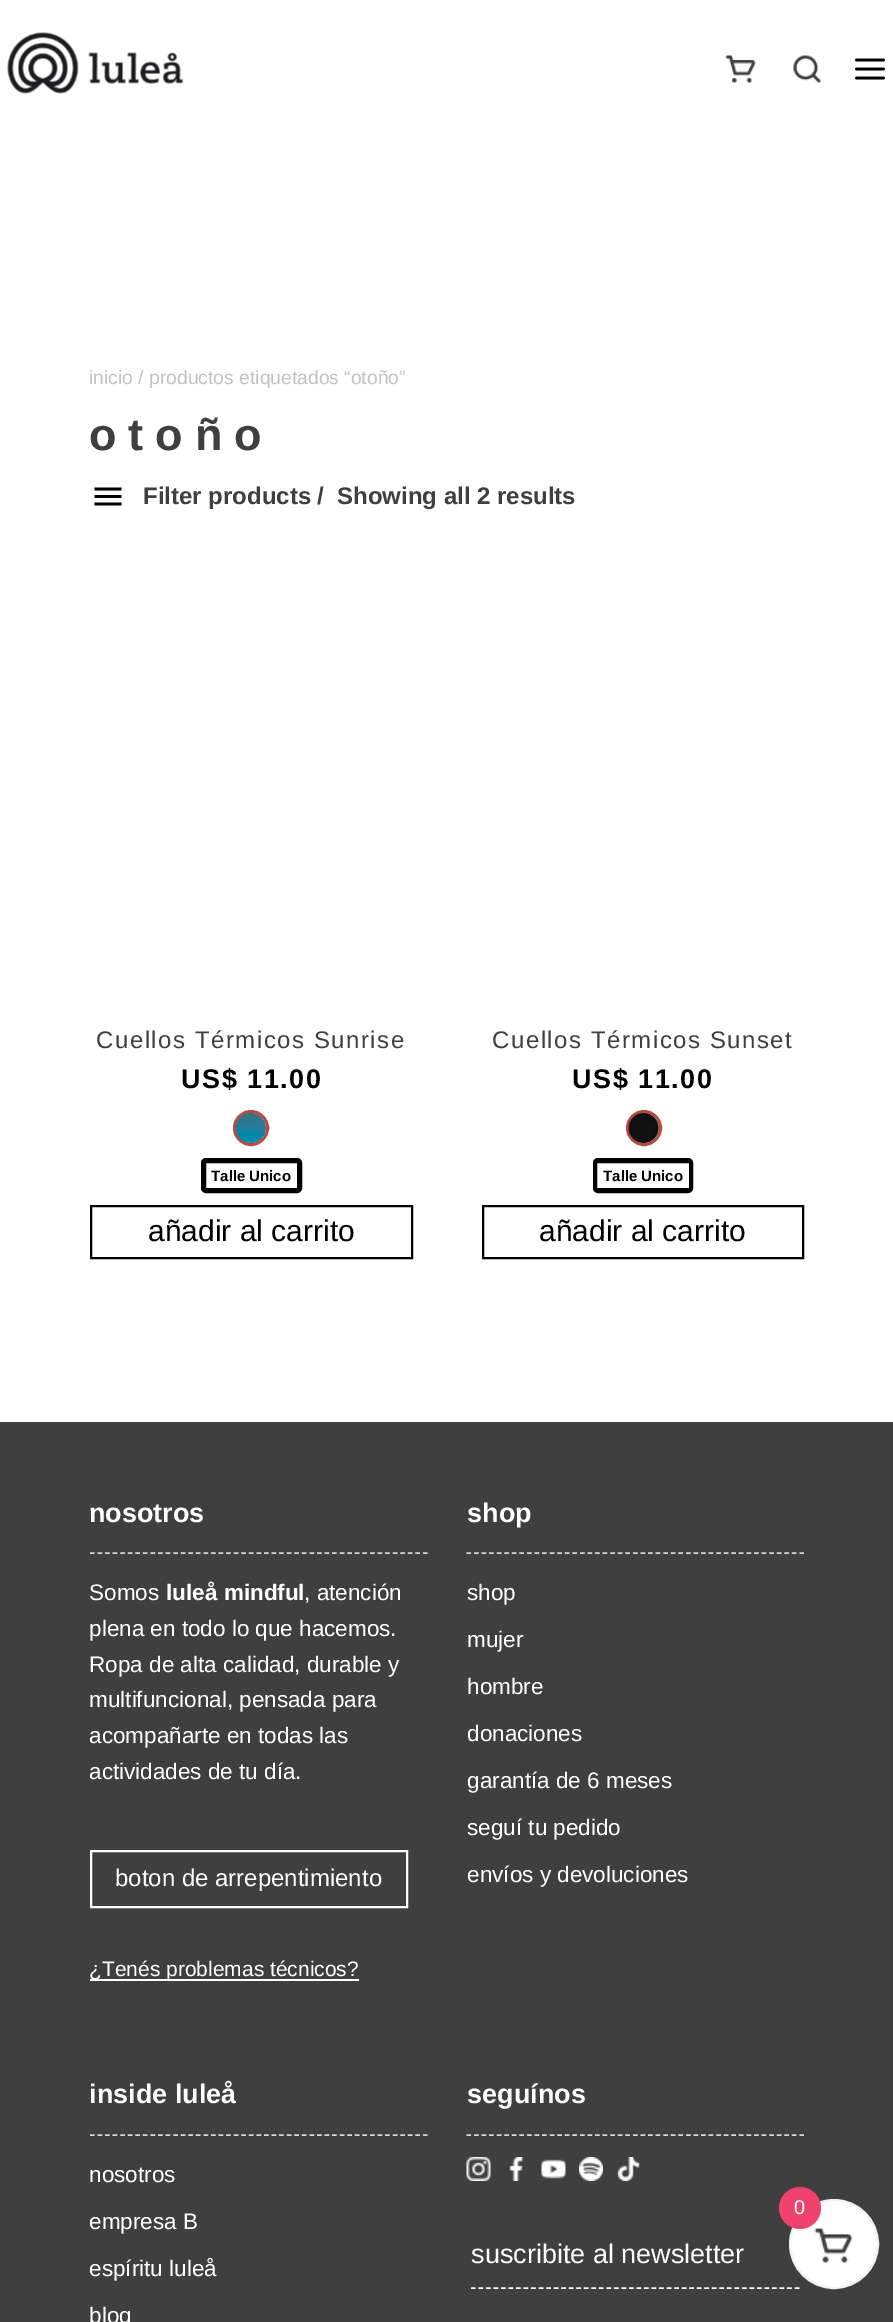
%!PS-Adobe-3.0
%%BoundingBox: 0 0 893 2322
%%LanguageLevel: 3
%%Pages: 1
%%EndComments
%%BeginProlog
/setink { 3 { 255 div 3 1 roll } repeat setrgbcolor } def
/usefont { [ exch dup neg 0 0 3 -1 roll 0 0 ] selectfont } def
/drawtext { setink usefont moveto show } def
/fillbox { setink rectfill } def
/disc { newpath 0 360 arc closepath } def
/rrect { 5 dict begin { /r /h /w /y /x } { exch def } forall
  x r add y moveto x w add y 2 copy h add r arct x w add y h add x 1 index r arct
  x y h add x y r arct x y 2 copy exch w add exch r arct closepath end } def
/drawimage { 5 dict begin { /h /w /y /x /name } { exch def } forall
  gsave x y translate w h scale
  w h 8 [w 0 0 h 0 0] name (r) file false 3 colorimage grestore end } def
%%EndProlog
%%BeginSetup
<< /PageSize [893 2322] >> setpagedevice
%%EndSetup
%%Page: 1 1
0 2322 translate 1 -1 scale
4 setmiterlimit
0 0 893 2322 255 255 255 fillbox
(assets/img1.rgb) 7 32 177 62 drawimage
(assets/img2.rgb) 725 55 31 28 drawimage
(assets/img3.rgb) 793 55 28 28 drawimage
(assets/img4.rgb) 855 58 30 22 drawimage
(inicio / productos etiquetados “otoño”) 89 384 /LiberationSans-Regular 19.3 195 195 195 drawtext
/LiberationSans-Bold 45 usefont
63 63 63 setink
89 450 moveto 12 0 (otoño) ashow
(assets/img5.rgb) 94 487 28 19 drawimage
(Filter products) 143 504 /LiberationSans-Bold 24 63 63 63 drawtext
(/) 317 504 /LiberationSans-Bold 24 63 63 63 drawtext
(Showing all 2 results) 337 504 /LiberationSans-Bold 24 63 63 63 drawtext
/LiberationSans-Regular 24 usefont
96 1048 moveto 1.5 0 (Cuellos Térmicos Sunrise) ashow
/LiberationSans-Bold 27 usefont
0 0 0 setink
181 1088 moveto 1.5 0 (US$ 11.00) ashow
102 102 102 setink
2 setlinewidth
251 1128 14 disc stroke
182 73 63 setink
3 setlinewidth
251 1128 16.5 disc stroke
(assets/img6.rgb) 235 1113 31 30 drawimage
0 0 0 setink
204.5 1161.5 94 28 1.5 rrect stroke
2 setlinewidth
202 1159 99 33 4 rrect stroke
(Talle Unico) 211 1181 /LiberationSans-Bold 15 0 0 0 drawtext
91 1206 321 52 rectstroke
(añadir al carrito) 148 1241 /LiberationSans-Regular 30 0 0 0 drawtext
/LiberationSans-Regular 24 usefont
63 63 63 setink
492 1048 moveto 1.5 0 (Cuellos Térmicos Sunset) ashow
/LiberationSans-Bold 27 usefont
0 0 0 setink
572 1088 moveto 1.5 0 (US$ 11.00) ashow
102 102 102 setink
644 1128 14 disc stroke
182 73 63 setink
3 setlinewidth
644 1128 16.5 disc stroke
(assets/img7.rgb) 628 1113 31 30 drawimage
0 0 0 setink
595.5 1161.5 95 28 1.5 rrect stroke
2 setlinewidth
594 1159 98 33 4 rrect stroke
(Talle Unico) 603 1181 /LiberationSans-Bold 15 0 0 0 drawtext
483 1206 320 52 rectstroke
(añadir al carrito) 539 1241 /LiberationSans-Regular 30 0 0 0 drawtext
0 1422 893 900 63 63 63 fillbox
(nosotros) 89 1522 /LiberationSans-Bold 27 255 255 255 drawtext
216 216 216 setink
1.5 setlinewidth
[4.5 3.07] 0 setdash
90 1553 moveto 427.5 1553 lineto stroke
(Somos) 89 1600 /LiberationSans-Regular 22.5 255 255 255 drawtext
(luleå mindful) 166 1600 /LiberationSans-Bold 22.5 255 255 255 drawtext
(, atención) 304 1600 /LiberationSans-Regular 22.5 255 255 255 drawtext
(plena en todo lo que hacemos.) 89 1636 /LiberationSans-Regular 22.5 255 255 255 drawtext
(Ropa de alta calidad, durable y) 89 1672 /LiberationSans-Regular 22.5 255 255 255 drawtext
(multifuncional, pensada para) 89 1707 /LiberationSans-Regular 22.5 255 255 255 drawtext
(acompañarte en todas las) 89 1743 /LiberationSans-Regular 22.5 255 255 255 drawtext
(actividades de tu día.) 89 1779 /LiberationSans-Regular 22.5 255 255 255 drawtext
2 setlinewidth
[] 0 setdash
91 1851 316 56 rectstroke
(boton de arrepentimiento) 115 1886 /LiberationSans-Regular 24 255 255 255 drawtext
90 1979 269 2 255 255 255 fillbox
(¿Tenés problemas técnicos?) 89 1976 /LiberationSans-Regular 21 255 255 255 drawtext
(shop) 467 1522 /LiberationSans-Bold 27 255 255 255 drawtext
216 216 216 setink
1.5 setlinewidth
[4.5 3.07] 0 setdash
466.5 1553 moveto 804 1553 lineto stroke
(shop) 467 1600 /LiberationSans-Regular 22.5 255 255 255 drawtext
(mujer) 467 1647 /LiberationSans-Regular 22.5 255 255 255 drawtext
(hombre) 467 1694 /LiberationSans-Regular 22.5 255 255 255 drawtext
(donaciones) 467 1741 /LiberationSans-Regular 22.5 255 255 255 drawtext
(garantía de 6 meses) 467 1788 /LiberationSans-Regular 22.5 255 255 255 drawtext
(seguí tu pedido) 467 1835 /LiberationSans-Regular 22.5 255 255 255 drawtext
(envíos y devoluciones) 467 1882 /LiberationSans-Regular 22.5 255 255 255 drawtext
(inside luleå) 89 2103 /LiberationSans-Bold 27 255 255 255 drawtext
216 216 216 setink
90 2135 moveto 427.5 2135 lineto stroke
(nosotros) 89 2182 /LiberationSans-Regular 22.5 255 255 255 drawtext
(empresa B) 89 2229 /LiberationSans-Regular 22.5 255 255 255 drawtext
(espíritu luleå) 89 2276 /LiberationSans-Regular 22.5 255 255 255 drawtext
(blog) 89 2323 /LiberationSans-Regular 22.5 255 255 255 drawtext
(seguínos) 467 2103 /LiberationSans-Bold 27 255 255 255 drawtext
216 216 216 setink
466.5 2135 moveto 804 2135 lineto stroke
(assets/img8.rgb) 466 2157 25 24 drawimage
(assets/img9.rgb) 509 2157 15 24 drawimage
(assets/img10.rgb) 541 2159 25 20 drawimage
(assets/img11.rgb) 579 2157 24 24 drawimage
(assets/img12.rgb) 617 2157 23 24 drawimage
255 255 255 setink
[4.5 3.03] 0 setdash
471 2288 moveto 799.5 2288 lineto stroke
(suscribite al newsletter) 471 2263 /LiberationSans-Regular 27 255 255 255 drawtext
834 2244 44 disc gsave fill grestore
241 241 241 setink
2 setlinewidth
[] 0 setdash
stroke
(assets/img13.rgb) 814 2228 39 35 drawimage
239 66 111 setink
800 2208 21 disc fill
(0) 794 2214 /LiberationSans-Regular 20 255 255 255 drawtext
showpage
%%EOF
